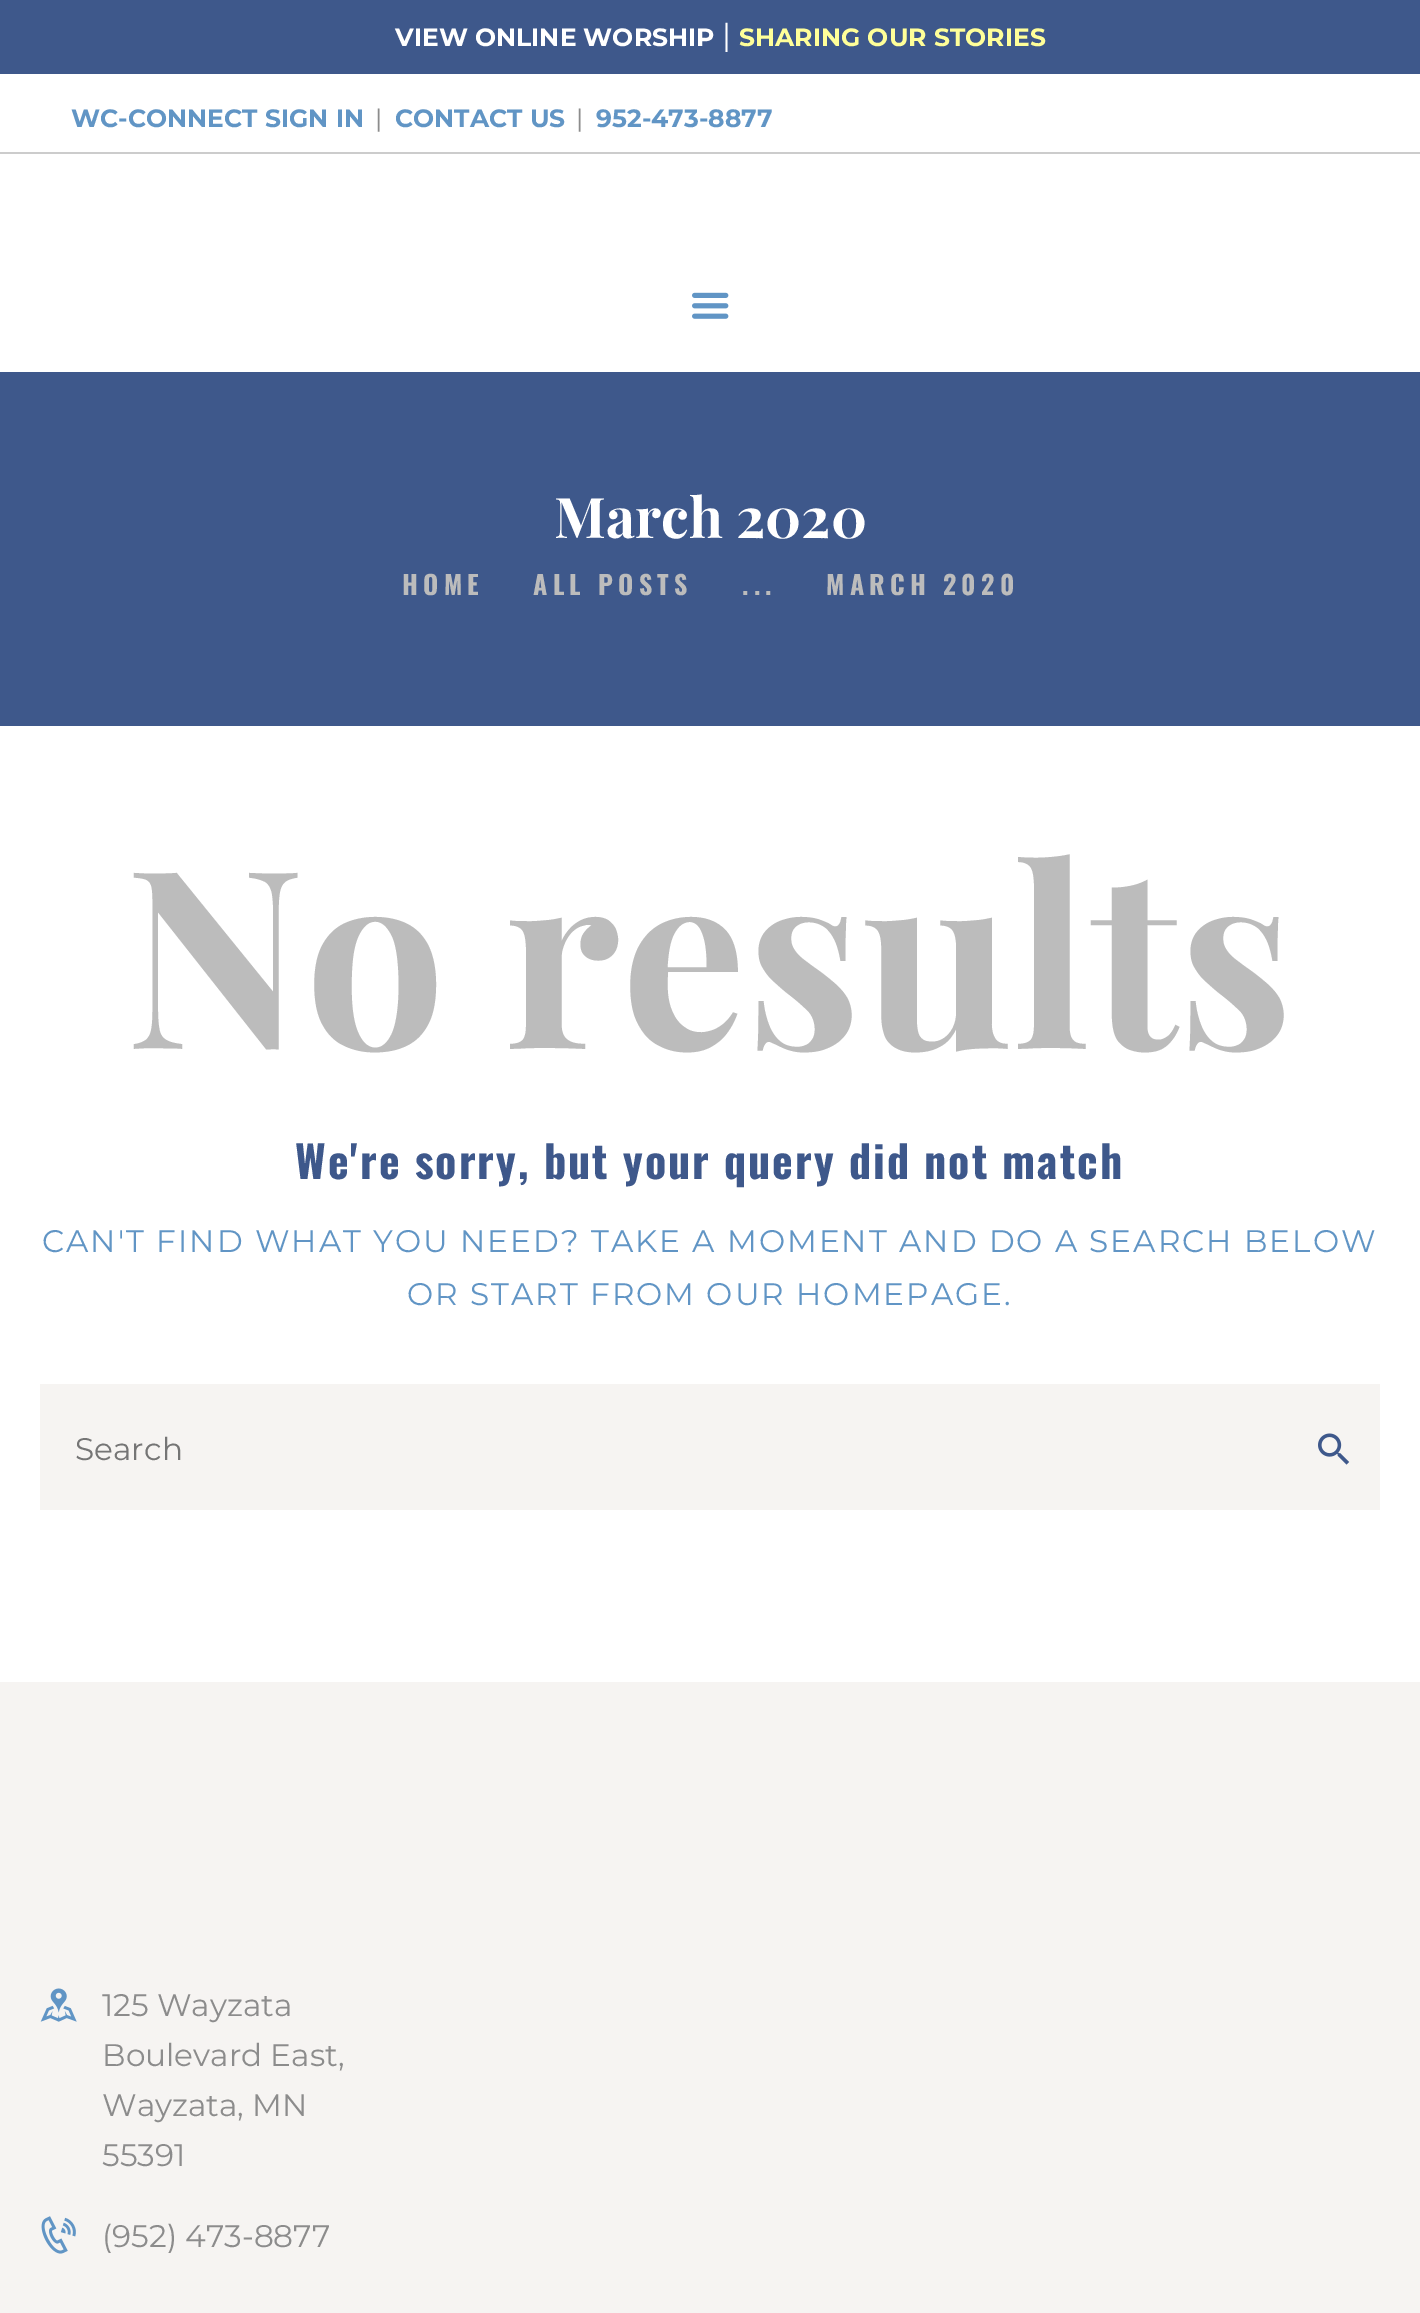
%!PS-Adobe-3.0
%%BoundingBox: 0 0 1420 2313
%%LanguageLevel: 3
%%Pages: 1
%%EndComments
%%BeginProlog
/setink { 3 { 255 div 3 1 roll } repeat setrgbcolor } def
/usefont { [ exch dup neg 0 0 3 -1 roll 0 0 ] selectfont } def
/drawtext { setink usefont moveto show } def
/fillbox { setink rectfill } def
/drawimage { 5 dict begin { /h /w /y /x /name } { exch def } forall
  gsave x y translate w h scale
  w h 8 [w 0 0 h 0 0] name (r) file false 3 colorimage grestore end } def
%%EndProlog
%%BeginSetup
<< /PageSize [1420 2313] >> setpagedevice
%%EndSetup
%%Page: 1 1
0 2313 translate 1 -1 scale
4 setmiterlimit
0 0 1420 2313 255 255 255 fillbox
0 0 1420 74 62 88 139 fillbox
(VIEW ONLINE WORSHIP) 395 46 /Montserrat-Bold 25 255 255 255 drawtext
(|) 722 46 /Montserrat-Regular 31.2 255 255 255 drawtext
(SHARING OUR STORIES) 739 46 /Montserrat-Bold 25 255 255 153 drawtext
0 152 1420 2 204 204 204 fillbox
(WC-CONNECT SIGN IN) 71 127 /Montserrat-Bold 25 97 149 197 drawtext
(|) 375 127 /Montserrat-Regular 25 140 140 140 drawtext
(CONTACT US) 395 127 /Montserrat-Bold 25 97 149 197 drawtext
(|) 576 127 /Montserrat-Regular 25 140 140 140 drawtext
(952-473-8877) 596 127 /Montserrat-Bold 25 97 149 197 drawtext
(assets/img1.rgb) 692 292 37 27 drawimage
0 372 1420 354 62 88 139 fillbox
(March 2020) 554 538 /PlayfairDisplay-Bold 56 255 255 255 drawtext
/Oswald-Bold 26 usefont
188 188 188 setink
402 595 moveto 5.25 0 (HOME) ashow
533 595 moveto 5.25 0 (ALL POSTS) ashow
742 595 moveto 5.25 0 (...) ashow
826 595 moveto 5.25 0 (MARCH 2020) ashow
(No results) 125 1049 /PlayfairDisplay-Bold 249.5 188 188 188 drawtext
/Oswald-Bold 44 usefont
62 88 139 setink
295 1179 moveto 2 0 (We're sorry, but your query did not match) ashow
/Montserrat-Regular 31.2 usefont
97 149 197 setink
42 1252 moveto 2 0 (CAN'T FIND WHAT YOU NEED? TAKE A MOMENT AND DO A SEARCH BELOW) ashow
407 1305 moveto 2 0 (OR START FROM OUR HOMEPAGE.) ashow
40 1384 1340 126 246 244 242 fillbox
(Search) 75 1460 /Montserrat-Regular 31.2 117 117 117 drawtext
(assets/img2.rgb) 1318 1433 32 32 drawimage
0 1682 1420 631 246 244 242 fillbox
(assets/img3.rgb) 40 1988 37 34 drawimage
(125 Wayzata) 102 2016 /Montserrat-Regular 31.2 140 140 140 drawtext
(Boulevard East,) 102 2066 /Montserrat-Regular 31.2 140 140 140 drawtext
(Wayzata, MN) 102 2116 /Montserrat-Regular 31.2 140 140 140 drawtext
(55391) 102 2166 /Montserrat-Regular 31.2 140 140 140 drawtext
(assets/img4.rgb) 41 2216 35 38 drawimage
(\(952\) 473-8877) 102 2247 /Montserrat-Regular 31.2 140 140 140 drawtext
showpage
%%EOF
